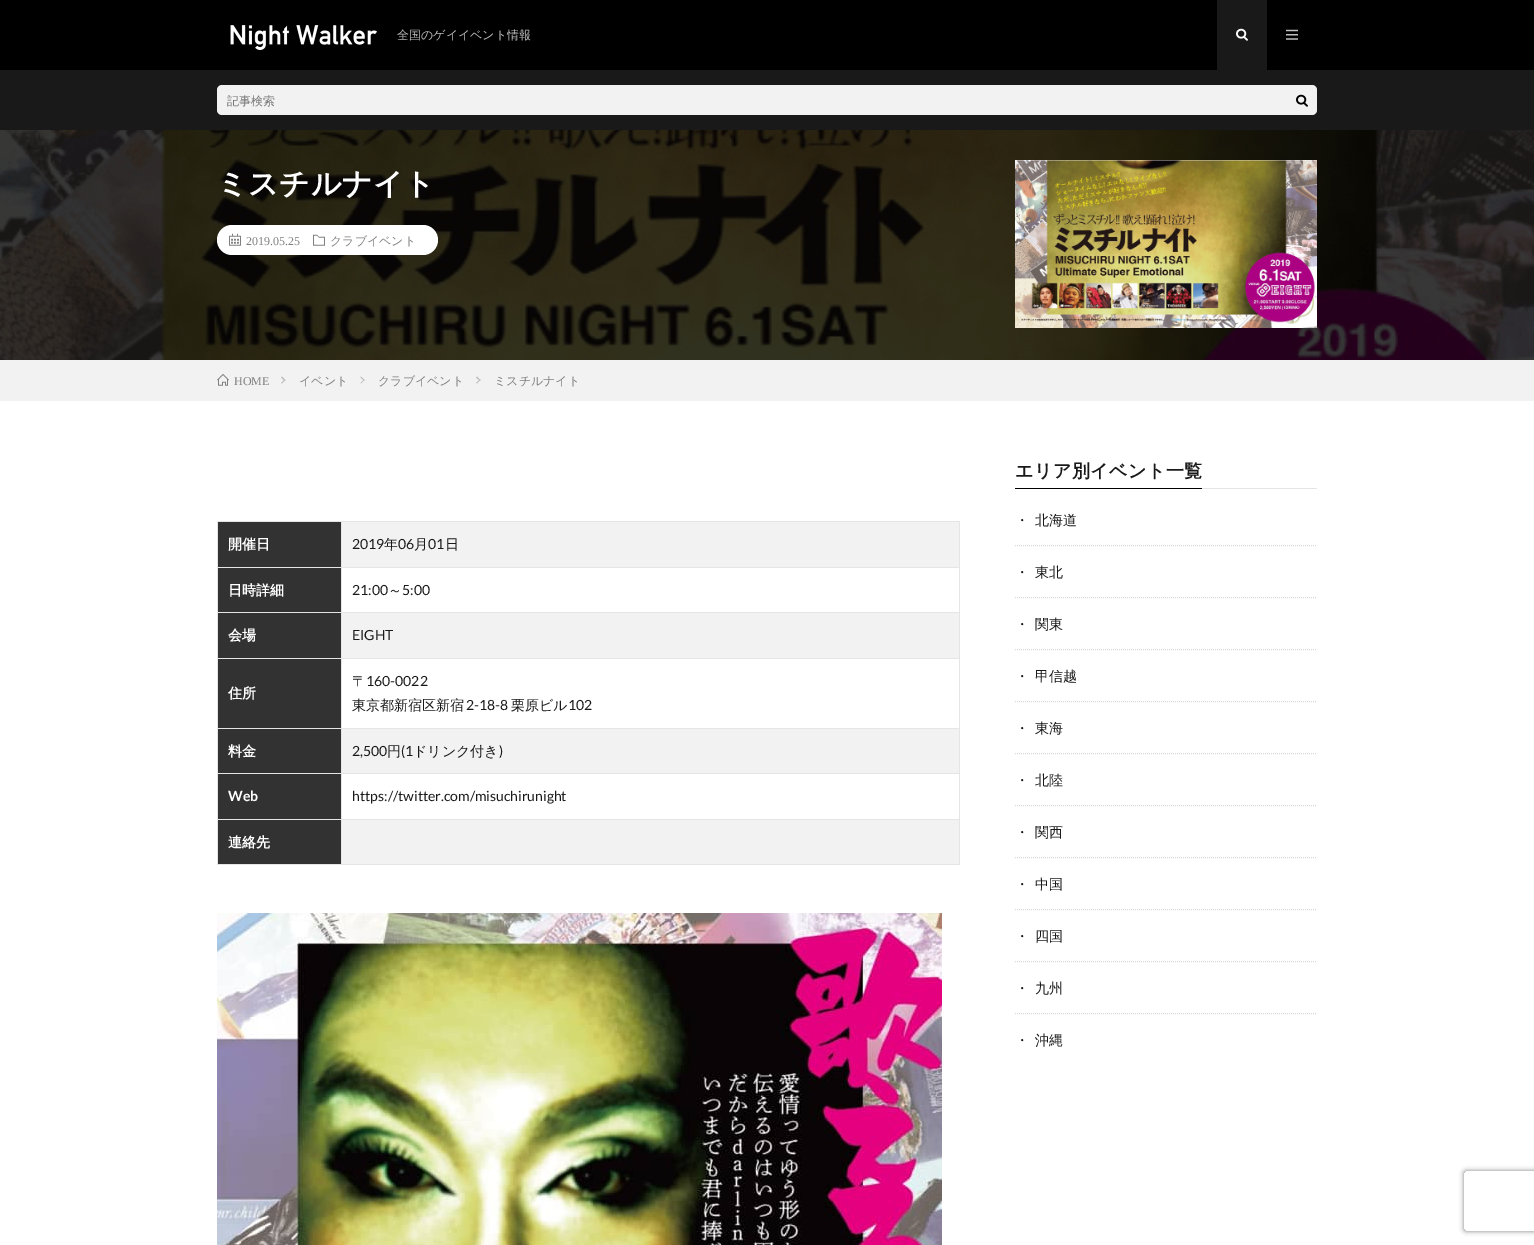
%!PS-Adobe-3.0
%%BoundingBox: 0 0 1534 1245
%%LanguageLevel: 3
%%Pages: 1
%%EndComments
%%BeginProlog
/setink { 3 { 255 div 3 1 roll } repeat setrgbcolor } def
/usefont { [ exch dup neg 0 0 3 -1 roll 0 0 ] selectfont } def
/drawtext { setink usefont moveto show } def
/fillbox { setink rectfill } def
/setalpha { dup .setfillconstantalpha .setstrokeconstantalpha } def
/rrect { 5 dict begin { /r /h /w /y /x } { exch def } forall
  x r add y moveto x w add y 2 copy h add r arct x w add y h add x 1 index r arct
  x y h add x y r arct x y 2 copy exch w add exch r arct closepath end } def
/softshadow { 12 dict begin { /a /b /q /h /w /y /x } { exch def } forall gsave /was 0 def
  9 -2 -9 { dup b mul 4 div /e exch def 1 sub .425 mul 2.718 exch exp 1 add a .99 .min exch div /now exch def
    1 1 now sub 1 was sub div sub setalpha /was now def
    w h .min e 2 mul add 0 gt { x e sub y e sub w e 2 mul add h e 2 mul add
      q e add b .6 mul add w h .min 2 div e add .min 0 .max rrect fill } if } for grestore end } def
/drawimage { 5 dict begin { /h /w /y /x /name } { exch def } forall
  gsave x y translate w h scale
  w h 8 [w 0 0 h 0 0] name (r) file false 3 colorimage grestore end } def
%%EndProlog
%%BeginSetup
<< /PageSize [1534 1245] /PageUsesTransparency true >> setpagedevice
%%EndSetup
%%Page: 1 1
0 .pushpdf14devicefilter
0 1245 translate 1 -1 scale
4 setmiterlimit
0 0 1534 1245 255 255 255 fillbox
0 0 1534 70 0 0 0 fillbox
(assets/img1.rgb) 230 25 147 25 drawimage
(全国のゲイイベント情報) 397 39 /WenQuanYiZenHei-Medium 12 191 191 191 drawtext
1217 0 50 70 25 25 25 fillbox
(assets/img2.rgb) 1236 28 12 13 drawimage
(assets/img3.rgb) 1286 29 12 11 drawimage
0 70 1534 60 25 25 25 fillbox
242 242 242 setink
217 85 1100 30 5 rrect fill
(記事検索) 227 105 /WenQuanYiZenHei-Medium 12 117 117 117 drawtext
(assets/img4.rgb) 1296 94 12 13 drawimage
(assets/img5.rgb) 0 130 1534 230 drawimage
/WenQuanYiZenHei-Bold 30 usefont
255 255 255 setink
217 194 moveto 0.5 0 (ミスチルナイト) ashow
217 225 221 30 15 rrect fill
(assets/img6.rgb) 229 233 12 13 drawimage
(2019.05.25) 246 245 /LiberationSerif-Regular 12 127 127 127 drawtext
(assets/img7.rgb) 313 234 12 12 drawimage
(クラブイベント) 330 245 /WenQuanYiZenHei-Medium 12 127 127 127 drawtext
(assets/img8.rgb) 1015 160 302 168 drawimage
0 360 1534 41 242 242 242 fillbox
(assets/img9.rgb) 217 374 12 12 drawimage
(HOME) 234 385 /LiberationSerif-Regular 12 127 127 127 drawtext
191 191 191 setink
282 376.5 moveto 285.5 380 lineto 284.5 381 lineto 281 377.5 lineto closepath fill
284.5 379.5 moveto 285.5 380 lineto 282 383.5 lineto 281 383 lineto closepath fill
(イベント) 299 385 /WenQuanYiZenHei-Medium 12 127 127 127 drawtext
191 191 191 setink
361 376.5 moveto 364.5 380 lineto 364 381 lineto 360.5 377.5 lineto closepath fill
364 379.5 moveto 364.5 380 lineto 361 383.5 lineto 360.5 383 lineto closepath fill
(クラブイベント) 378 385 /WenQuanYiZenHei-Medium 12 127 127 127 drawtext
191 191 191 setink
477 376.5 moveto 480.5 380 lineto 480 381 lineto 476 377.5 lineto closepath fill
480 379.5 moveto 480.5 380 lineto 477 383.5 lineto 476 383 lineto closepath fill
(ミスチルナイト) 494 385 /WenQuanYiZenHei-Medium 12 127 127 127 drawtext
217 521 743 1 229 229 229 fillbox
217 521 1 344 229 229 229 fillbox
342 522 617 45 242 242 242 fillbox
218 522 123 45 50 50 50 fillbox
959 521 1 344 229 229 229 fillbox
341 864 619 1 229 229 229 fillbox
341 819 1 46 229 229 229 fillbox
341 819 619 1 229 229 229 fillbox
341 773 1 47 229 229 229 fillbox
341 773 619 1 229 229 229 fillbox
341 728 1 46 229 229 229 fillbox
341 728 619 1 229 229 229 fillbox
341 658 1 71 229 229 229 fillbox
341 658 619 1 229 229 229 fillbox
341 612 1 47 229 229 229 fillbox
341 612 619 1 229 229 229 fillbox
341 567 1 46 229 229 229 fillbox
341 567 619 1 229 229 229 fillbox
341 521 1 47 229 229 229 fillbox
217 567 125 1 229 229 229 fillbox
(開催日) 228 549 /WenQuanYiZenHei-Bold 14 255 255 255 drawtext
(2019) 352 549 /Lato-Regular 14 25 25 25 drawtext
(年) 384 549 /WenQuanYiZenHei-Medium 14 25 25 25 drawtext
(06) 398 549 /Lato-Regular 14 25 25 25 drawtext
(月) 414 549 /WenQuanYiZenHei-Medium 14 25 25 25 drawtext
(01) 428 549 /Lato-Regular 14 25 25 25 drawtext
(日) 445 549 /WenQuanYiZenHei-Medium 14 25 25 25 drawtext
218 568 123 44 50 50 50 fillbox
217 612 125 1 229 229 229 fillbox
(日時詳細) 228 595 /WenQuanYiZenHei-Bold 14 255 255 255 drawtext
(21:00) 352 595 /Lato-Regular 14 25 25 25 drawtext
(～) 388 595 /WenQuanYiZenHei-Medium 14 25 25 25 drawtext
(5:00) 402 595 /Lato-Regular 14 25 25 25 drawtext
342 613 617 45 242 242 242 fillbox
218 613 123 45 50 50 50 fillbox
217 658 125 1 229 229 229 fillbox
(会場) 228 640 /WenQuanYiZenHei-Bold 14 255 255 255 drawtext
(EIGHT) 352 640 /Lato-Regular 14 25 25 25 drawtext
218 659 123 69 50 50 50 fillbox
217 728 125 1 229 229 229 fillbox
(住所) 228 698 /WenQuanYiZenHei-Bold 14 255 255 255 drawtext
(〒) 352 686 /WenQuanYiZenHei-Medium 14 25 25 25 drawtext
(160-0022) 366 686 /Lato-Regular 14 25 25 25 drawtext
(東京都新宿区新宿) 352 710 /WenQuanYiZenHei-Medium 14 25 25 25 drawtext
(2-18-8) 466 710 /Lato-Regular 14 25 25 25 drawtext
(栗原ビル) 511 710 /WenQuanYiZenHei-Medium 14 25 25 25 drawtext
(102) 568 710 /Lato-Regular 14 25 25 25 drawtext
342 729 617 44 242 242 242 fillbox
218 729 123 44 50 50 50 fillbox
217 773 125 1 229 229 229 fillbox
(料金) 228 756 /WenQuanYiZenHei-Bold 14 255 255 255 drawtext
(2,500) 352 756 /Lato-Regular 14 25 25 25 drawtext
(円) 387 756 /WenQuanYiZenHei-Medium 14 25 25 25 drawtext
(\(1) 401 756 /Lato-Regular 14 25 25 25 drawtext
(ドリンク付き) 413 756 /WenQuanYiZenHei-Medium 14 25 25 25 drawtext
(\)) 499 756 /Lato-Regular 14 25 25 25 drawtext
218 774 123 45 50 50 50 fillbox
217 819 125 1 229 229 229 fillbox
(Web) 228 801 /Lato-Bold 14 255 255 255 drawtext
(https://twitter.com/misuchirunight) 352 801 /Lato-Regular 14 25 25 25 drawtext
342 820 617 44 242 242 242 fillbox
218 820 123 44 50 50 50 fillbox
217 864 125 1 229 229 229 fillbox
(連絡先) 228 847 /WenQuanYiZenHei-Bold 14 255 255 255 drawtext
(assets/img10.rgb) 217 913 725 332 drawimage
/WenQuanYiZenHei-Bold 18 usefont
25 25 25 setink
1015 477 moveto 0.5 0 (エリア別イベント一覧) ashow
1015 488 187 1 0 0 0 fillbox
1202 488 115 1 229 229 229 fillbox
(・) 1015 525 /WenQuanYiZenHei-Medium 14 25 25 25 drawtext
(北海道) 1035 525 /WenQuanYiZenHei-Medium 14 25 25 25 drawtext
216 216 216 setink
[1 1] 0 setdash
1015 545.5 moveto 1317 545.5 lineto stroke
(・) 1015 577 /WenQuanYiZenHei-Medium 14 25 25 25 drawtext
(東北) 1035 577 /WenQuanYiZenHei-Medium 14 25 25 25 drawtext
216 216 216 setink
1015 597.5 moveto 1317 597.5 lineto stroke
(・) 1015 629 /WenQuanYiZenHei-Medium 14 25 25 25 drawtext
(関東) 1035 629 /WenQuanYiZenHei-Medium 14 25 25 25 drawtext
216 216 216 setink
1015 649.5 moveto 1317 649.5 lineto stroke
(・) 1015 681 /WenQuanYiZenHei-Medium 14 25 25 25 drawtext
(甲信越) 1035 681 /WenQuanYiZenHei-Medium 14 25 25 25 drawtext
216 216 216 setink
1015 701.5 moveto 1317 701.5 lineto stroke
(・) 1015 733 /WenQuanYiZenHei-Medium 14 25 25 25 drawtext
(東海) 1035 733 /WenQuanYiZenHei-Medium 14 25 25 25 drawtext
216 216 216 setink
1015 753.5 moveto 1317 753.5 lineto stroke
(・) 1015 785 /WenQuanYiZenHei-Medium 14 25 25 25 drawtext
(北陸) 1035 785 /WenQuanYiZenHei-Medium 14 25 25 25 drawtext
216 216 216 setink
1015 805.5 moveto 1317 805.5 lineto stroke
(・) 1015 837 /WenQuanYiZenHei-Medium 14 25 25 25 drawtext
(関西) 1035 837 /WenQuanYiZenHei-Medium 14 25 25 25 drawtext
216 216 216 setink
1015 857.5 moveto 1317 857.5 lineto stroke
(・) 1015 889 /WenQuanYiZenHei-Medium 14 25 25 25 drawtext
(中国) 1035 889 /WenQuanYiZenHei-Medium 14 25 25 25 drawtext
216 216 216 setink
1015 909.5 moveto 1317 909.5 lineto stroke
(・) 1015 941 /WenQuanYiZenHei-Medium 14 25 25 25 drawtext
(四国) 1035 941 /WenQuanYiZenHei-Medium 14 25 25 25 drawtext
216 216 216 setink
1015 961.5 moveto 1317 961.5 lineto stroke
(・) 1015 993 /WenQuanYiZenHei-Medium 14 25 25 25 drawtext
(九州) 1035 993 /WenQuanYiZenHei-Medium 14 25 25 25 drawtext
216 216 216 setink
1015 1013.5 moveto 1317 1013.5 lineto stroke
(・) 1015 1045 /WenQuanYiZenHei-Medium 14 25 25 25 drawtext
(沖縄) 1035 1045 /WenQuanYiZenHei-Medium 14 25 25 25 drawtext
gsave
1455 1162 moveto 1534 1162 lineto 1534 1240 lineto 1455 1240 lineto closepath 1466 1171 moveto 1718 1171 lineto 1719 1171 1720 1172 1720 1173 curveto 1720 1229 lineto 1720 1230 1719 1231 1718 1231 curveto 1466 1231 lineto 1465 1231 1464 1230 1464 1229 curveto 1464 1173 lineto 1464 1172 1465 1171 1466 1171 curveto closepath eoclip newpath
128 128 128 setink
1464 1171 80 60 2 2.5 1 softshadow
grestore
.poppdf14devicefilter showpage
%%EOF
